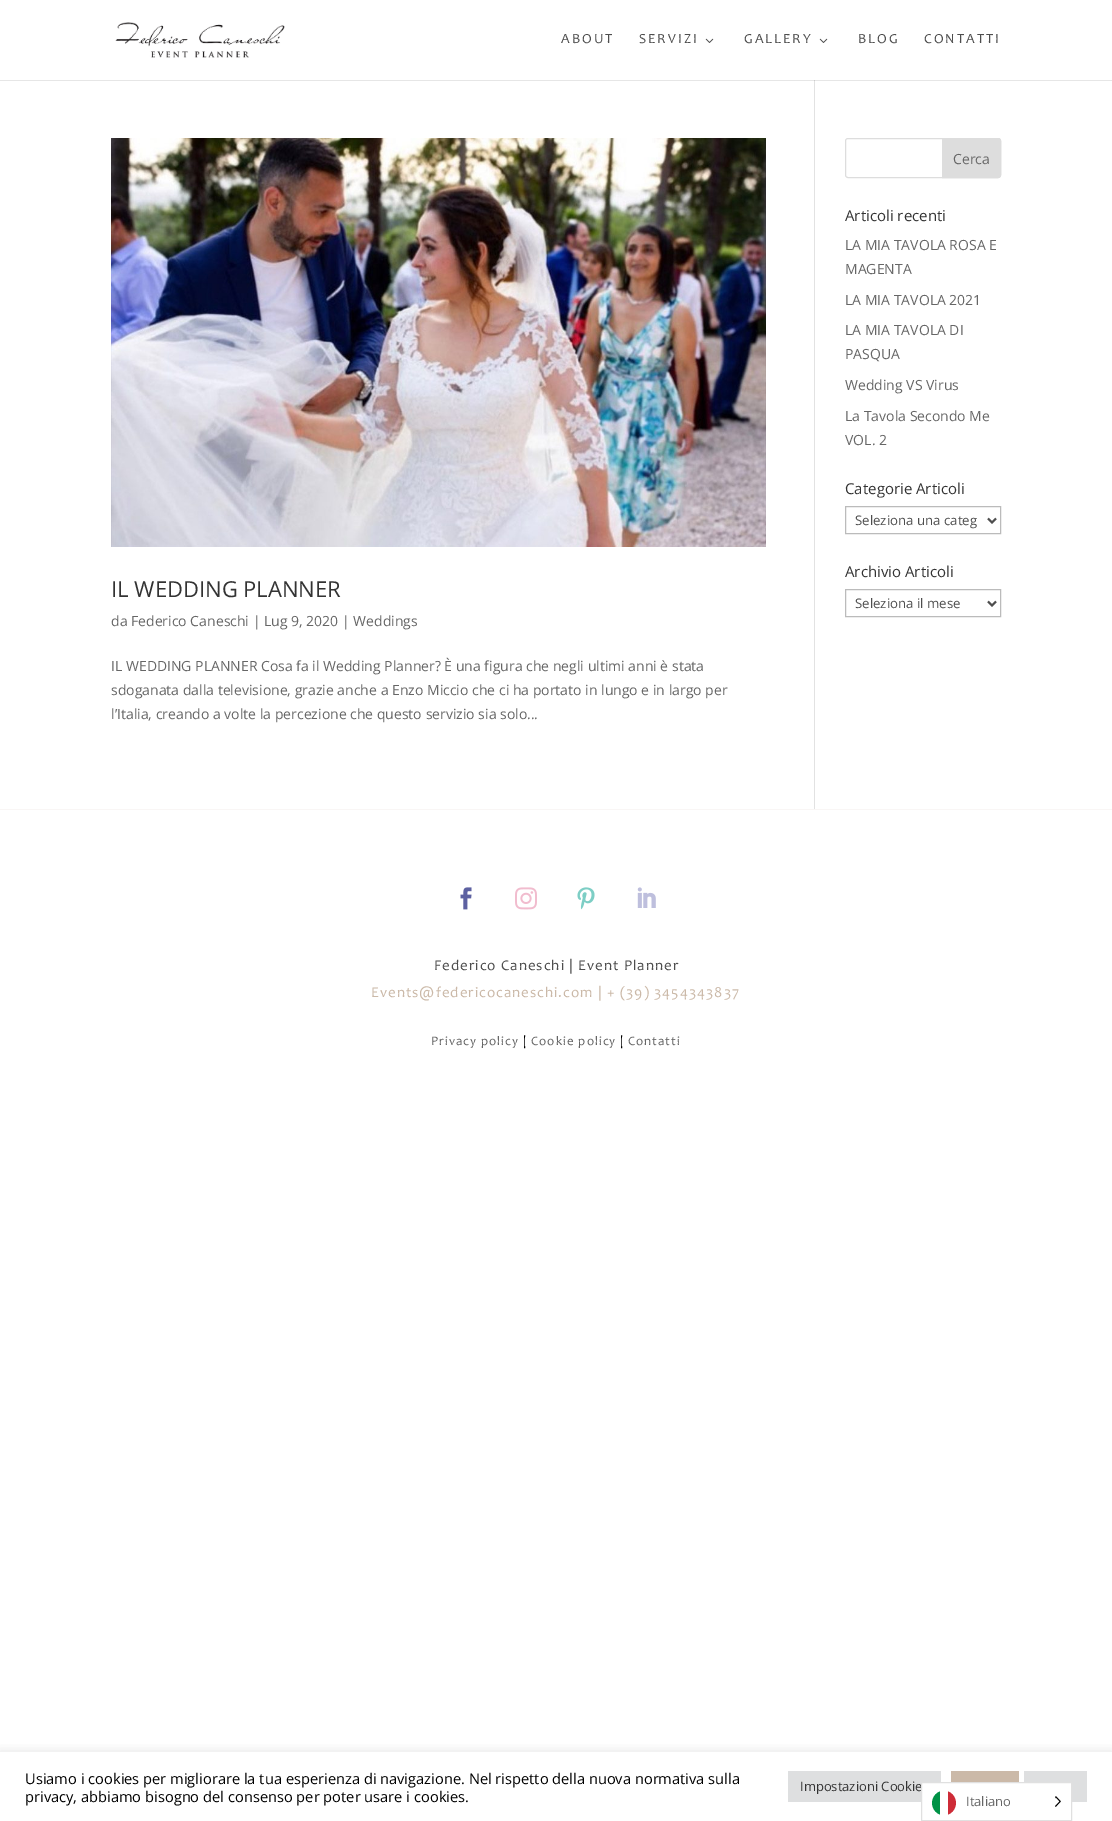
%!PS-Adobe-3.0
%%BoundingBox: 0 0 1112 1821
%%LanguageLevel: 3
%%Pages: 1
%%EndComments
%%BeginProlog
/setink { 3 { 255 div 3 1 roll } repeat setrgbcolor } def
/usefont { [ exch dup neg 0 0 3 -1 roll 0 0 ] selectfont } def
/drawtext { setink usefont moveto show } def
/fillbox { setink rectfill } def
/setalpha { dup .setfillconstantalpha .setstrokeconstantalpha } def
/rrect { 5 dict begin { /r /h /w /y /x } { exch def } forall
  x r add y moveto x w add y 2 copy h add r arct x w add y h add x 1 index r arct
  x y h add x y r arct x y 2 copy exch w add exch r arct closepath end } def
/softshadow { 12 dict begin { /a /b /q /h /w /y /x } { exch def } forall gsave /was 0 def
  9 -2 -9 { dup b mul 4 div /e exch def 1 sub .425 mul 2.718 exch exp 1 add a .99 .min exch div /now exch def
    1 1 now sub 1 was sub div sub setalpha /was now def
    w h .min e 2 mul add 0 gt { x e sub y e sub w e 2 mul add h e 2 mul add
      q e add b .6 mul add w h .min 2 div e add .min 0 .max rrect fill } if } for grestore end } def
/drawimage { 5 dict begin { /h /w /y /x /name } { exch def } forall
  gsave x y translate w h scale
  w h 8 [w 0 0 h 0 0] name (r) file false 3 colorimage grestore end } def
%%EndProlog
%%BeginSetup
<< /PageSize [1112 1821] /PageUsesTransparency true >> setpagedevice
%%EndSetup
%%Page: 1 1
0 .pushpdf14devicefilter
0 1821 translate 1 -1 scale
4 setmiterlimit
0 0 1112 1821 255 255 255 fillbox
0 80 1112 1 230 230 230 fillbox
(assets/img1.rgb) 115 22 170 36 drawimage
/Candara-Regular 14 usefont
78 78 78 setink
561 43 moveto 2 0 (ABOUT) ashow
639 43 moveto 2 0 (SERVIZI) ashow
(assets/img2.rgb) 705 38 9 5 drawimage
744 43 moveto 2 0 (GALLERY) ashow
(assets/img2.rgb) 819 38 9 5 drawimage
858 43 moveto 2 0 (BLOG) ashow
924 43 moveto 2 0 (CONTATTI) ashow
814 80 1 729 226 226 226 fillbox
814 80 1 1 203 203 203 fillbox
221 221 221 setink
845.5 138.5 155 39 2.5 rrect stroke
942.5 138.5 moveto 998 138.5 lineto 999.5 138.5 1000.5 139.5 1000.5 141 curveto 1000.5 175 lineto 1000.5 176.5 999.5 177.5 998 177.5 curveto 942.5 177.5 lineto closepath gsave fill grestore
stroke
(Cerca) 953 164 /OpenSans-Regular 14 102 102 102 drawtext
(Articoli recenti) 845 221 /OpenSans-Regular 15 51 51 51 drawtext
(LA MIA TAVOLA ROSA E) 845 250 /OpenSans-Regular 14 102 102 102 drawtext
(MAGENTA) 845 274 /OpenSans-Regular 14 102 102 102 drawtext
(LA MIA TAVOLA 2021) 845 305 /OpenSans-Regular 14 102 102 102 drawtext
(LA MIA TAVOLA DI) 845 335 /OpenSans-Regular 14 102 102 102 drawtext
(PASQUA) 845 359 /OpenSans-Regular 14 102 102 102 drawtext
(Wedding VS Virus) 845 390 /OpenSans-Regular 14 102 102 102 drawtext
(La Tavola Secondo Me) 845 421 /OpenSans-Regular 14 102 102 102 drawtext
(VOL. 2) 845 445 /OpenSans-Regular 14 102 102 102 drawtext
(Categorie Articoli) 845 494 /OpenSans-Regular 15 51 51 51 drawtext
187 187 187 setink
845.5 506.5 155 27 rectstroke
78 78 78 setink
2 setlinewidth
988 518.5 moveto 992 522.5 lineto 996 518.5 lineto stroke
(Seleziona una categ) 855 525 /OpenSans-Regular 13.25 78 78 78 drawtext
(Archivio Articoli) 845 577 /OpenSans-Regular 15 51 51 51 drawtext
187 187 187 setink
1 setlinewidth
845.5 589.5 155 27 rectstroke
78 78 78 setink
2 setlinewidth
988 601.5 moveto 992 605.5 lineto 996 601.5 lineto stroke
(Seleziona il mese) 855 608 /OpenSans-Regular 13.25 78 78 78 drawtext
(assets/img3.rgb) 111 138 655 409 drawimage
(IL WEDDING PLANNER) 111 597 /OpenSans-Regular 22 51 51 51 drawtext
(da Federico Caneschi | Lug 9, 2020 | Weddings) 111 626 /OpenSans-Regular 14 102 102 102 drawtext
(IL WEDDING PLANNER Cosa fa il Wedding Planner? È una figura che negli ultimi anni è stata) 111 671 /OpenSans-Regular 14 102 102 102 drawtext
(sdoganata dalla televisione, grazie anche a Enzo Miccio che ci ha portato in lungo e in largo per) 111 695 /OpenSans-Regular 14 102 102 102 drawtext
(l’Italia, creando a volte la percezione che questo servizio sia solo...) 111 719 /OpenSans-Regular 14 102 102 102 drawtext
0 809 1112 1 249 246 245 fillbox
(assets/img4.rgb) 460 887 12 23 drawimage
(assets/img5.rgb) 515 887 22 23 drawimage
(assets/img6.rgb) 577 887 18 23 drawimage
(assets/img7.rgb) 637 887 19 21 drawimage
/Candara-Regular 15 usefont
78 78 78 setink
434 970 moveto 1 0 (Federico Caneschi | Event Planner) ashow
203 185 168 setink
371 997 moveto 1 0 (Events@federicocaneschi.com | + \(39\) 3454343837) ashow
/Candara-Regular 13 usefont
102 102 102 setink
431 1045 moveto 1 0 (Privacy policy) ashow
0 0 0 setink
523 1045 moveto 1 0 (|) ashow
102 102 102 setink
531 1045 moveto 1 0 (Cookie policy) ashow
0 0 0 setink
620 1045 moveto 1 0 (|) ashow
102 102 102 setink
628 1045 moveto 1 0 (Contatti) ashow
gsave
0 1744 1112 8 rectclip
172 171 171 setink
0 1751 1112 69 0 5 0.3 softshadow
grestore
(Usiamo i cookies per migliorare la tua esperienza di navigazione. Nel rispetto della nuova normativa sulla) 25 1784 /OpenSans-Regular 14.65 0 0 0 drawtext
(privacy, abbiamo bisogno del consenso per poter usare i cookies.) 25 1802 /OpenSans-Regular 14.65 0 0 0 drawtext
788 1771 153 31 222 223 224 fillbox
(Impostazioni Cookie) 800 1791 /OpenSans-Regular 13 51 51 51 drawtext
951 1771 68 11 203 185 168 fillbox
1024 1771 63 31 222 223 224 fillbox
922 1783 149 19 255 255 255 fillbox
224 224 224 setink
1 setlinewidth
921.5 1782.5 150 38 rectstroke
0 146 70 setink
940 1814.5 moveto 929.5 1810.5 929.5 1795.5 940 1791.5 curveto closepath fill
206 43 55 setink
948 1791.5 moveto 958.5 1795.5 958.5 1810.5 948 1814.5 curveto closepath fill
(Italiano) 966 1806 /OpenSans-Regular 13 102 102 102 drawtext
(assets/img8.rgb) 1055 1796 6 11 drawimage
.poppdf14devicefilter showpage
%%EOF
